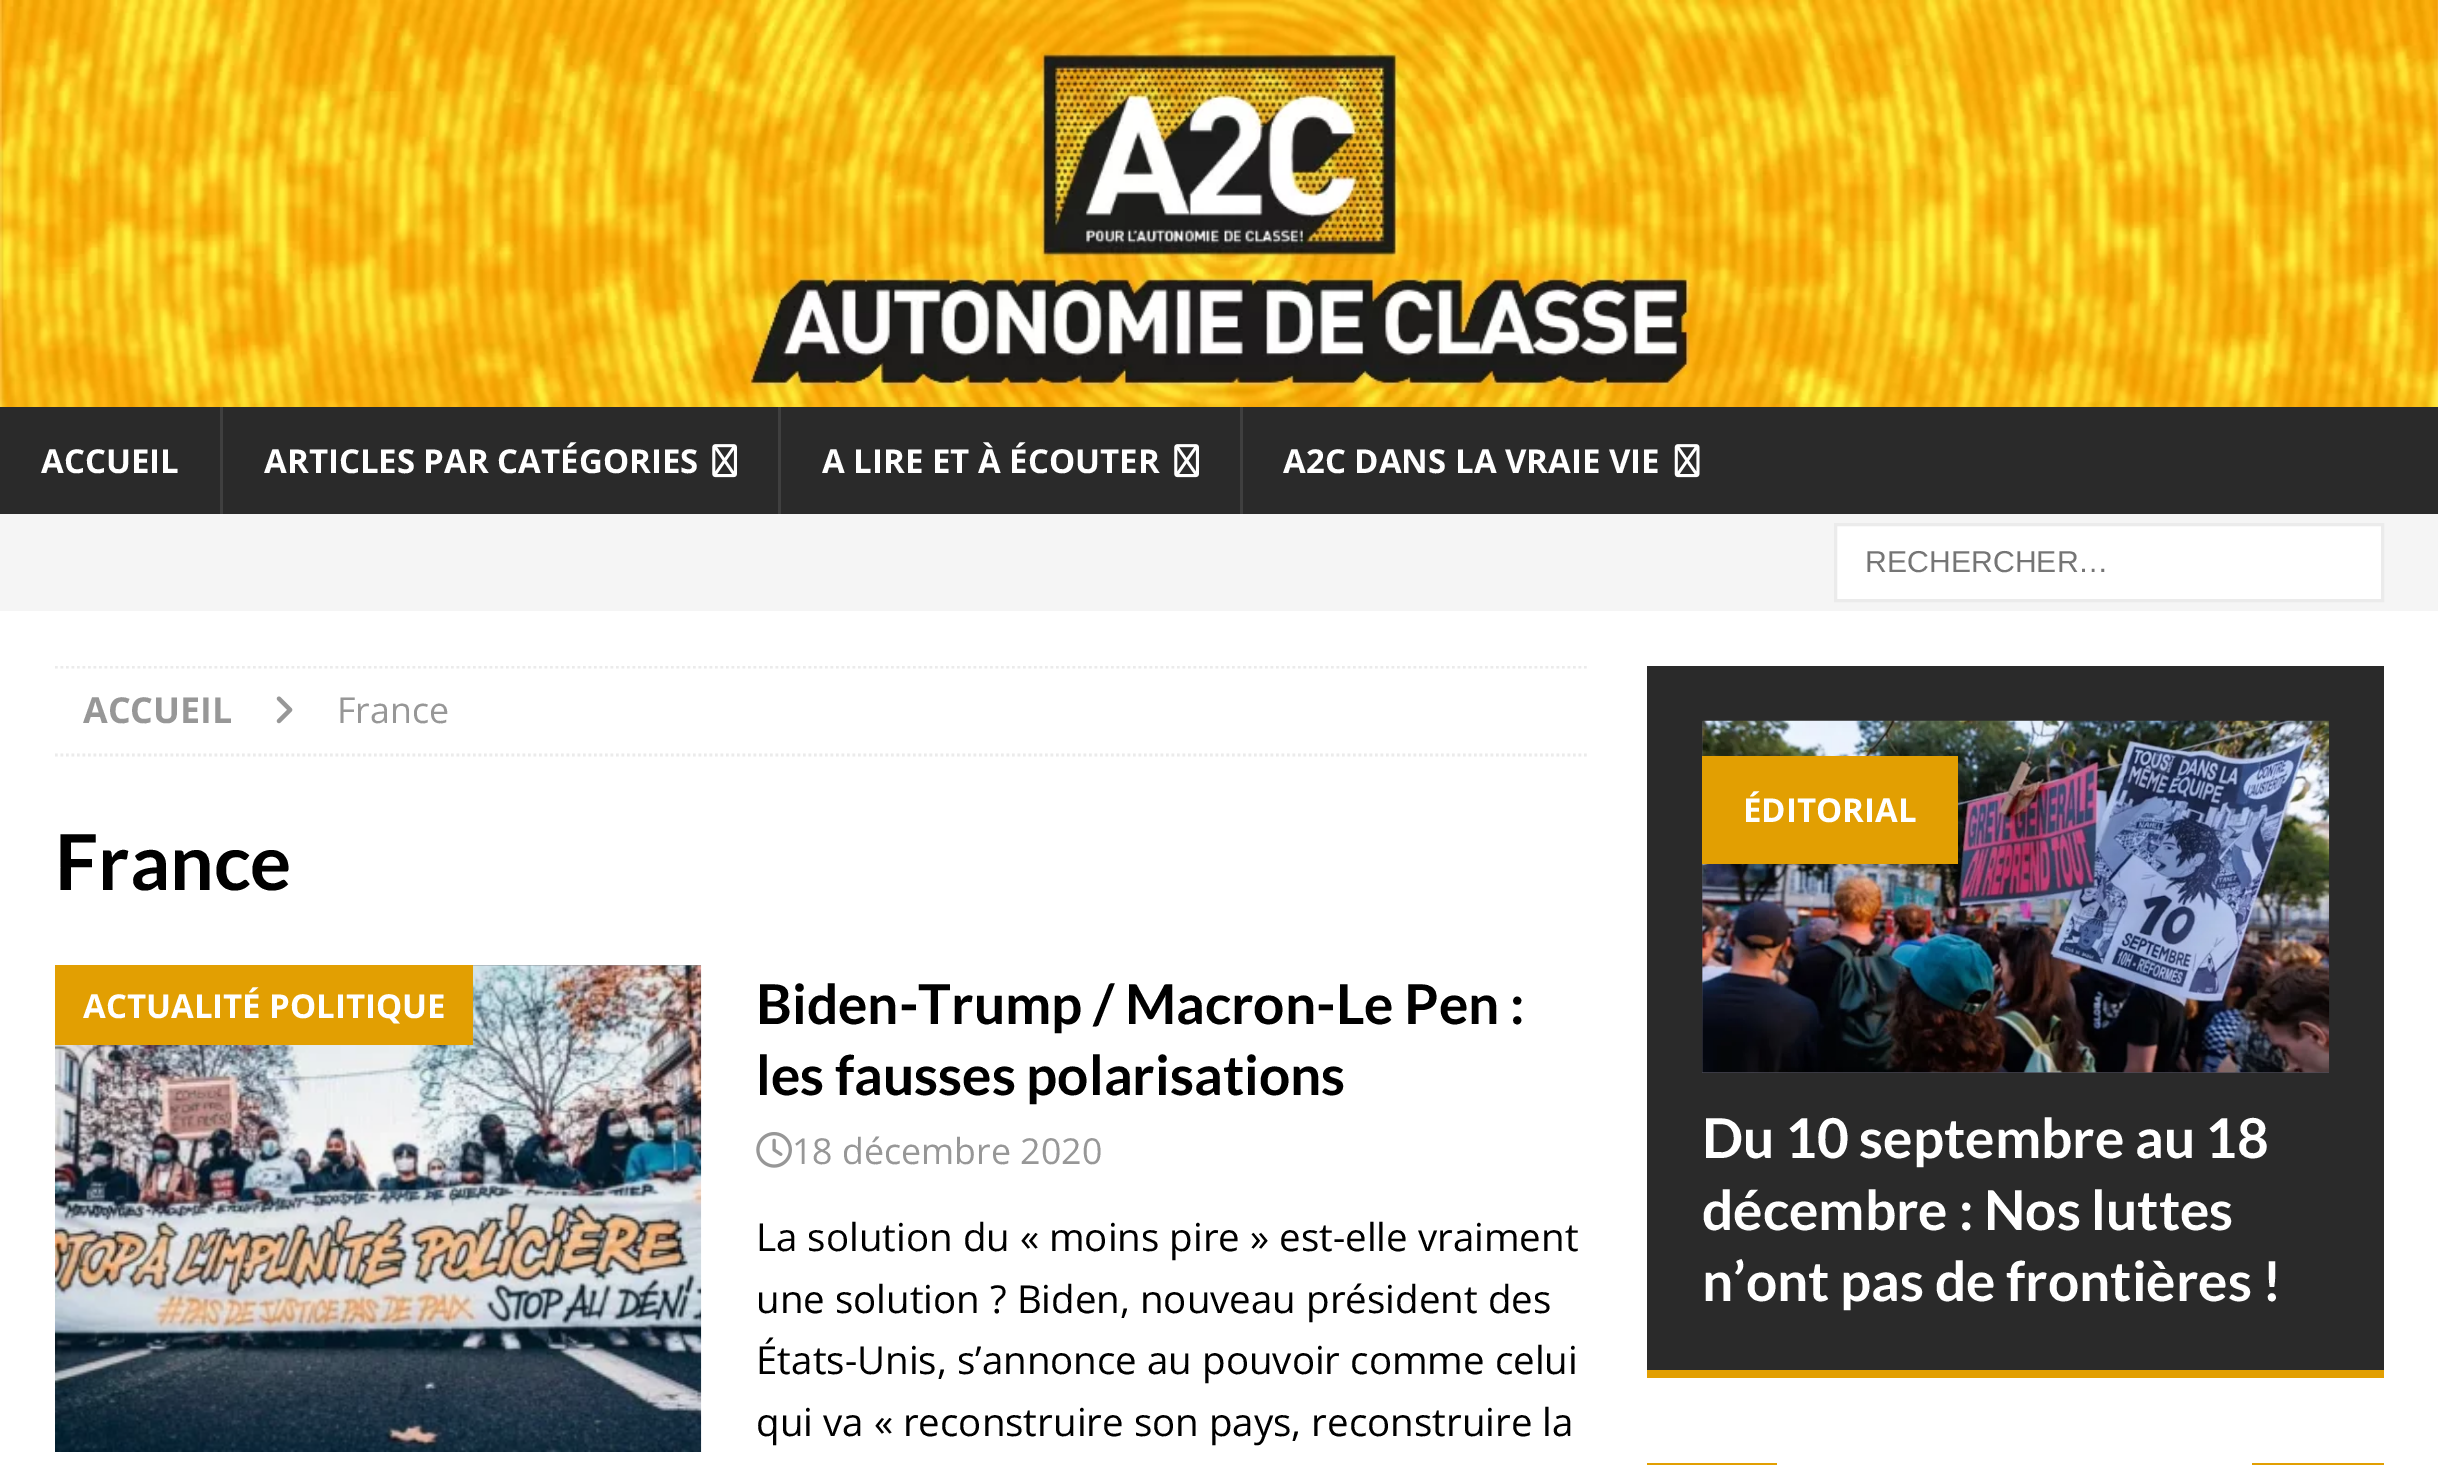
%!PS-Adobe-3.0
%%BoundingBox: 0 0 2438 1465
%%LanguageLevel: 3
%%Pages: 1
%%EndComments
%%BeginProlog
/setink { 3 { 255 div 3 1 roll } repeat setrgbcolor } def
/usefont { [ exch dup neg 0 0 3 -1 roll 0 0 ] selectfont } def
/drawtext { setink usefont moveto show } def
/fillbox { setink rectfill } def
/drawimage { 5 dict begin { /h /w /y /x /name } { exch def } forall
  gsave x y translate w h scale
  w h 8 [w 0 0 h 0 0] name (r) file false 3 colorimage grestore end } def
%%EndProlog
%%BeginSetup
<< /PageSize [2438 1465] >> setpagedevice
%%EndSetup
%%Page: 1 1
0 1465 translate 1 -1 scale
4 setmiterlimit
0 0 2438 1465 42 42 42 fillbox
(assets/img1.rgb) 0 0 2438 407 drawimage
(ACCUEIL) 41 473 /OpenSans-Bold 33 255 255 255 drawtext
220 407 3 107 63 63 63 fillbox
(ARTICLES PAR CATÉGORIES) 264 473 /OpenSans-Bold 33 255 255 255 drawtext
(assets/img2.rgb) 712 444 25 34 drawimage
778 407 3 107 63 63 63 fillbox
(A LIRE ET À ÉCOUTER) 822 473 /OpenSans-Bold 33 255 255 255 drawtext
(assets/img2.rgb) 1174 444 25 34 drawimage
1240 407 3 107 63 63 63 fillbox
(A2C DANS LA VRAIE VIE) 1283 473 /OpenSans-Bold 33 255 255 255 drawtext
(assets/img3.rgb) 1674 444 26 34 drawimage
0 514 2438 97 245 245 245 fillbox
255 255 255 setink
1835.5 524.5 moveto 2382.5 524.5 lineto 2382.5 600.5 lineto 1835.5 600.5 lineto closepath gsave fill grestore
235 235 235 setink
3 setlinewidth
stroke
(RECHERCHER…) 1865 572 /LiberationSans-Regular 30.25 117 117 117 drawtext
0 611 2438 854 255 255 255 fillbox
gsave
55 666 1535 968 rectclip
235 235 235 setink
2.8 setlinewidth
[2.75 2.75] 0 setdash
55 667 moveto 1589.5 667 lineto stroke
grestore
235 235 235 setink
2.8 setlinewidth
[2.75 2.75] 0 setdash
55 755 moveto 1589.5 755 lineto stroke
(ACCUEIL) 83 723 /OpenSans-Bold 35.75 151 151 151 drawtext
(assets/img4.rgb) 276 696 17 28 drawimage
(France) 337 723 /OpenSans-Regular 35.75 151 151 151 drawtext
(France) 55 890 /Lato-Bold 77 0 0 0 drawtext
473 965 228 1 137 140 145 fillbox
(assets/img5.rgb) 55 965 647 487 drawimage
55 965 418 80 226 159 2 fillbox
(ACTUALITÉ POLITIQUE) 83 1018 /OpenSans-Bold 33 255 255 255 drawtext
(Biden-Trump / Macron-Le Pen :) 756 1024 /Lato-Bold 55 0 0 0 drawtext
(les fausses polarisations) 756 1095 /Lato-Bold 55 0 0 0 drawtext
(assets/img6.rgb) 756 1132 36 36 drawimage
(18 décembre 2020) 792 1164 /OpenSans-Regular 35.75 151 151 151 drawtext
(La solution du « moins pire » est-elle vraiment) 756 1251 /OpenSans-Regular 38.5 0 0 0 drawtext
(une solution ? Biden, nouveau président des) 756 1313 /OpenSans-Regular 38.5 0 0 0 drawtext
(États-Unis, s’annonce au pouvoir comme celui) 756 1374 /OpenSans-Regular 38.5 0 0 0 drawtext
(qui va « reconstruire son pays, reconstruire la) 756 1436 /OpenSans-Regular 38.5 0 0 0 drawtext
1647 666 737 704 42 42 42 fillbox
1647 1370 737 8 226 159 2 fillbox
1702 721 627 352 76 75 87 fillbox
(assets/img7.rgb) 1702 720 628 353 drawimage
1702 756 256 108 226 159 2 fillbox
(ÉDITORIAL) 1743 822 /OpenSans-Bold 33 255 255 255 drawtext
(Du 10 septembre au 18) 1702 1158 /Lato-Bold 55 255 255 255 drawtext
(décembre : Nos luttes) 1702 1230 /Lato-Bold 55 255 255 255 drawtext
(n’ont pas de frontières !) 1702 1301 /Lato-Bold 55 255 255 255 drawtext
1647 1463 737 2 226 159 2 fillbox
1777 1463 475 2 255 255 255 fillbox
showpage
%%EOF
